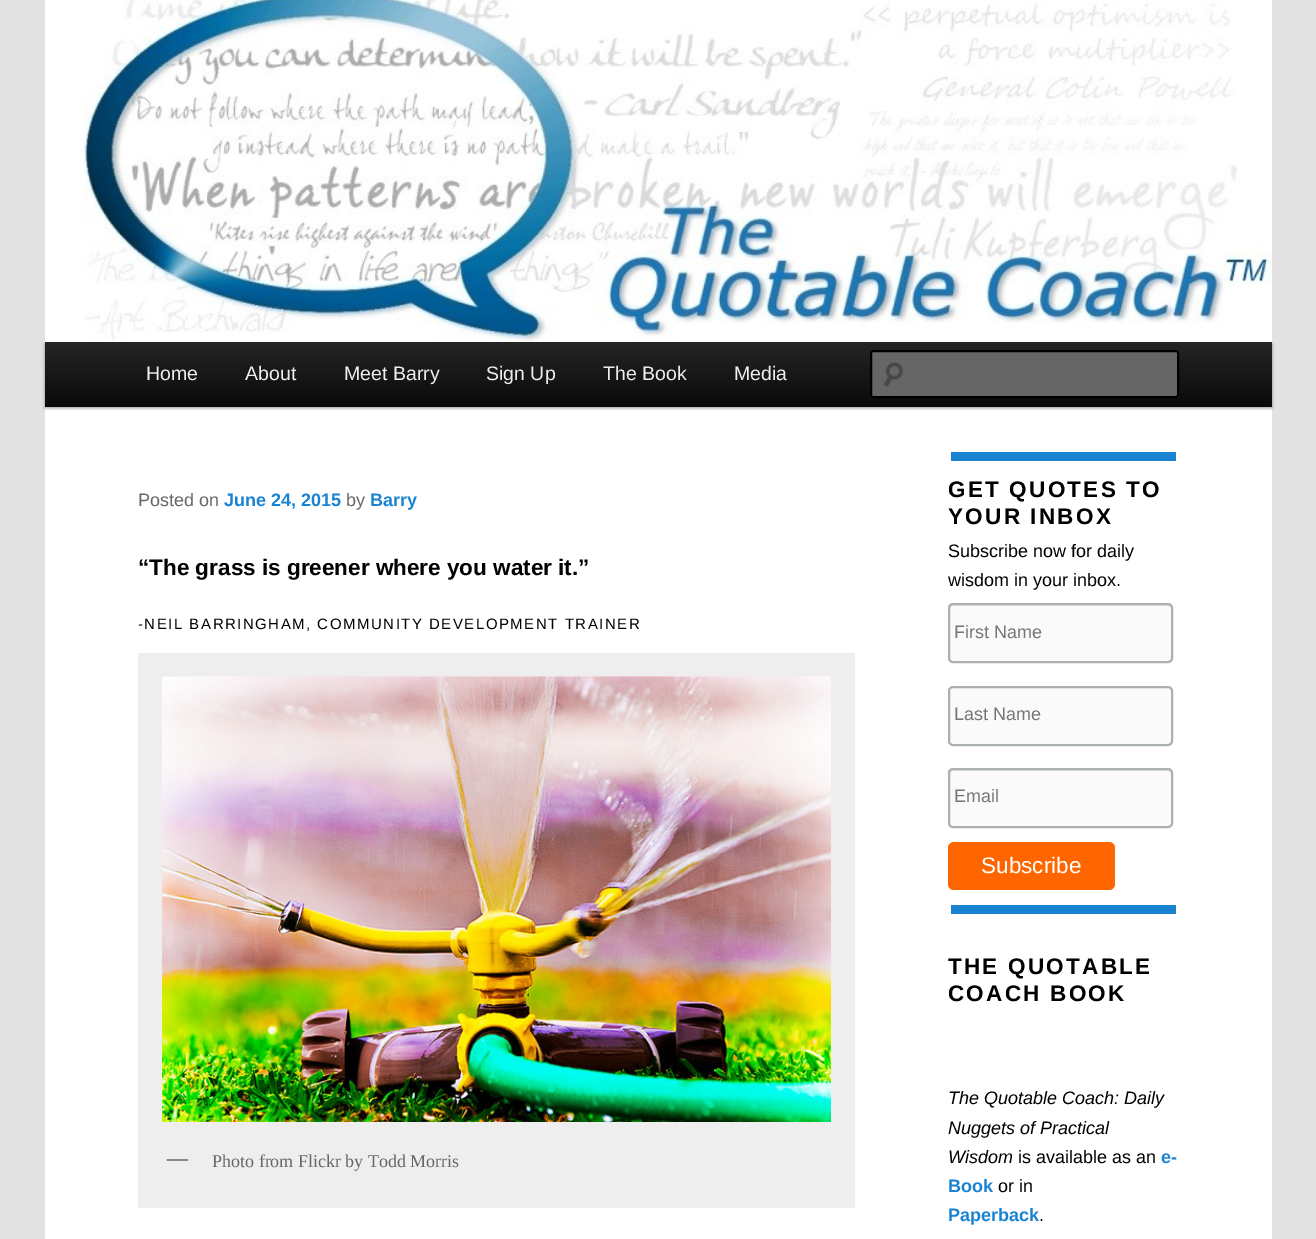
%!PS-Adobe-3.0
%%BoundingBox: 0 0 1316 1239
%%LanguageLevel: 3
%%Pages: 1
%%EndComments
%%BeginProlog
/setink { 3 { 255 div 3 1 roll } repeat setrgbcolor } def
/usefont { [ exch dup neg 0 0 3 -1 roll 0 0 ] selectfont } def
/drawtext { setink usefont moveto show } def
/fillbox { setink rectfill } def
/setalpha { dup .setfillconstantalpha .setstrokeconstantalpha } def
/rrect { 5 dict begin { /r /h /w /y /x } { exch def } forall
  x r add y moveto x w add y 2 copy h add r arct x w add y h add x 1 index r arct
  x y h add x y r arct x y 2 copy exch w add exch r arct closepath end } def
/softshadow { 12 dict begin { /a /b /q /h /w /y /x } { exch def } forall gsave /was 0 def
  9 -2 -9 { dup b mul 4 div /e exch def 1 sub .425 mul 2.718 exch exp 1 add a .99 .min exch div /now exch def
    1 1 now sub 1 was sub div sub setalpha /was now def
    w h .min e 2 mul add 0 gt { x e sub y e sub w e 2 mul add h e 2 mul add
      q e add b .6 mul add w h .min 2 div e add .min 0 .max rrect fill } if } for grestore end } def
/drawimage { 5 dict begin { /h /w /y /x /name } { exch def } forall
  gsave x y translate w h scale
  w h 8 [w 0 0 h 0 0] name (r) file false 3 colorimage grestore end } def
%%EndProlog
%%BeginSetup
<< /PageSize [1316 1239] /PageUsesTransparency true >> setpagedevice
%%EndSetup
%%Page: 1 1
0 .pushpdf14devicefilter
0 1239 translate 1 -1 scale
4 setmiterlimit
0 0 1316 1239 226 226 226 fillbox
45 0 1227 1239 255 255 255 fillbox
0 0 0 setink
45 344 1227 64 0 1.5 0.4 softshadow
(assets/img1.rgb) 47 0 1225 342 drawimage
gsave 45 342 moveto 1272 342 lineto 1272 407 lineto 45 407 lineto closepath clip newpath
<< /ShadingType 2 /ColorSpace /DeviceRGB /Coords [659 342 659 407] /Extend [true true] /Function << /FunctionType 2 /Domain [0 1] /C0 [0.145 0.145 0.145] /C1 [0.039 0.039 0.039] /N 1 >> >> shfill grestore
(Home) 146 380 /LiberationSans-Regular 19.5 238 238 238 drawtext
(About) 245 380 /LiberationSans-Regular 19.5 238 238 238 drawtext
(Meet Barry) 344 380 /LiberationSans-Regular 19.5 238 238 238 drawtext
(Sign Up) 486 380 /LiberationSans-Regular 19.5 238 238 238 drawtext
(The Book) 603 380 /LiberationSans-Regular 19.5 238 238 238 drawtext
(Media) 734 380 /LiberationSans-Regular 19.5 238 238 238 drawtext
102 102 102 setink
870 350 309 48 3 rrect fill
(assets/img2.rgb) 883 362 21 25 drawimage
0 0 0 setink
2 setlinewidth
871 351 307 46 2 rrect stroke
(Posted on) 138 506 /LiberationSans-Regular 18 102 102 102 drawtext
(June 24, 2015) 224 506 /LiberationSans-Bold 18 25 130 209 drawtext
(by) 346 506 /LiberationSans-Regular 18 102 102 102 drawtext
(Barry) 370 506 /LiberationSans-Bold 18 25 130 209 drawtext
(“The grass is greener where you water it.”) 138 575 /LiberationSans-Bold 22.5 0 0 0 drawtext
/LiberationSans-Regular 15 usefont
138 629 moveto 1.5 0 (-NEIL BARRINGHAM, COMMUNITY DEVELOPMENT TRAINER) ashow
138 653 717 555 238 238 238 fillbox
(assets/img3.rgb) 162 676 669 446 drawimage
(—) 167 1165 /LiberationSerif-Bold 21 102 102 102 drawtext
(Photo from Flickr by Todd Morris) 212 1167 /LiberationSerif-Regular 18 102 102 102 drawtext
951 452 225 9 25 130 209 fillbox
951 905 225 9 25 130 209 fillbox
/LiberationSans-Bold 22.5 usefont
0 0 0 setink
948 497 moveto 2.25 0 (GET QUOTES TO) ashow
948 524 moveto 2.25 0 (YOUR INBOX) ashow
(Subscribe now for daily) 948 557 /LiberationSans-Regular 18 0 0 0 drawtext
(wisdom in your inbox.) 948 586 /LiberationSans-Regular 18 0 0 0 drawtext
250 250 250 setink
948 603 225 60 5 rrect fill
225 225 225 setink
952 606 moveto 1168 606 lineto 1170 606 1172 607 1172 609 curveto 1172 608 lineto 1172 606 1171 605 1169 605 curveto 953 605 lineto 951 605 950 606 950 608 curveto 950 609 lineto 950 607 951 606 952 606 curveto closepath fill
171 176 178 setink
949 604 223 58 4 rrect stroke
(First Name) 954 638 /LiberationSans-Regular 18 117 117 117 drawtext
250 250 250 setink
949 687 223 58 4 rrect gsave fill grestore
171 176 178 setink
stroke
(Last Name) 954 720 /LiberationSans-Regular 18 117 117 117 drawtext
250 250 250 setink
948 768 225 60 5 rrect fill
225 225 225 setink
952 771 moveto 1168 771 lineto 1170 771 1172 772 1172 774 curveto 1172 773 lineto 1172 771 1171 770 1169 770 curveto 953 770 lineto 951 770 950 771 950 773 curveto 950 774 lineto 950 772 951 771 952 771 curveto closepath fill
171 176 178 setink
949 769 223 58 4 rrect stroke
(Email) 954 802 /LiberationSans-Regular 18 117 117 117 drawtext
255 102 0 setink
948 842 167 48 6 rrect fill
(Subscribe) 981 873 /LiberationSans-Regular 22.5 255 255 255 drawtext
/LiberationSans-Bold 22.5 usefont
0 0 0 setink
948 974 moveto 2.25 0 (THE QUOTABLE) ashow
948 1001 moveto 2.25 0 (COACH BOOK) ashow
(The Quotable Coach: Daily) 948 1104 /LiberationSans-Italic 18 0 0 0 drawtext
(Nuggets of Practical) 948 1134 /LiberationSans-Italic 18 0 0 0 drawtext
(Wisdom) 948 1163 /LiberationSans-Italic 18 0 0 0 drawtext
(is available as an) 1018 1163 /LiberationSans-Regular 18 0 0 0 drawtext
(e-) 1161 1163 /LiberationSans-Bold 18 25 130 209 drawtext
(Book) 948 1192 /LiberationSans-Bold 18 25 130 209 drawtext
(or in) 998 1192 /LiberationSans-Regular 18 0 0 0 drawtext
(Paperback) 948 1221 /LiberationSans-Bold 18 25 130 209 drawtext
(.) 1039 1221 /LiberationSans-Regular 18 0 0 0 drawtext
.poppdf14devicefilter showpage
%%EOF
